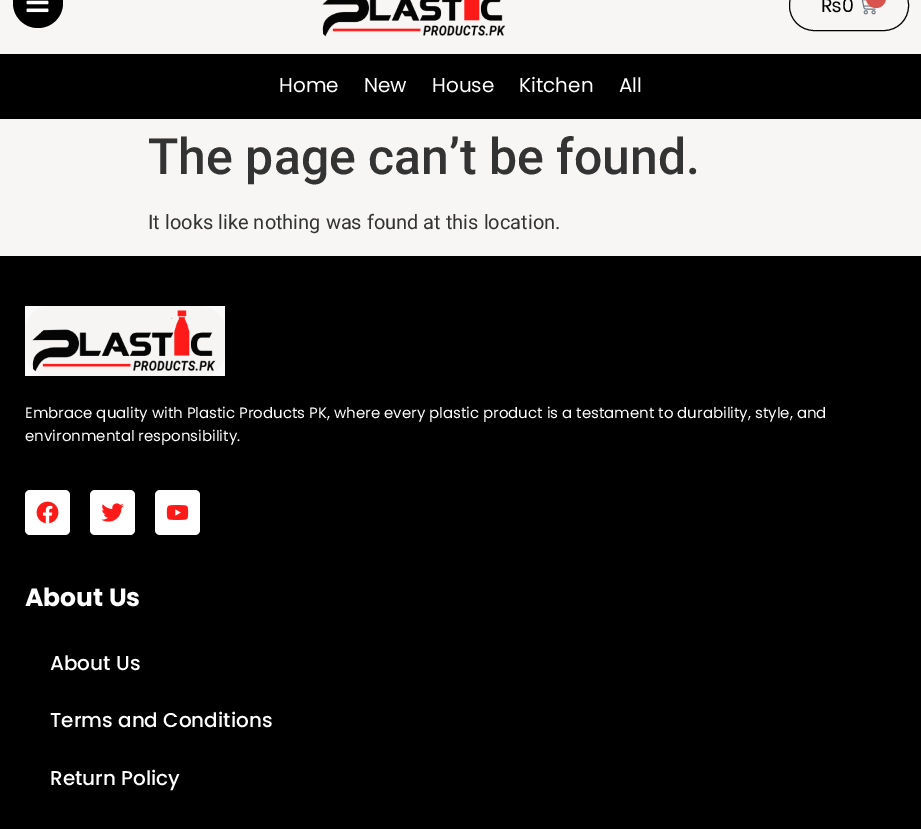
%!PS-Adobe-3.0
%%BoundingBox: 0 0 921 829
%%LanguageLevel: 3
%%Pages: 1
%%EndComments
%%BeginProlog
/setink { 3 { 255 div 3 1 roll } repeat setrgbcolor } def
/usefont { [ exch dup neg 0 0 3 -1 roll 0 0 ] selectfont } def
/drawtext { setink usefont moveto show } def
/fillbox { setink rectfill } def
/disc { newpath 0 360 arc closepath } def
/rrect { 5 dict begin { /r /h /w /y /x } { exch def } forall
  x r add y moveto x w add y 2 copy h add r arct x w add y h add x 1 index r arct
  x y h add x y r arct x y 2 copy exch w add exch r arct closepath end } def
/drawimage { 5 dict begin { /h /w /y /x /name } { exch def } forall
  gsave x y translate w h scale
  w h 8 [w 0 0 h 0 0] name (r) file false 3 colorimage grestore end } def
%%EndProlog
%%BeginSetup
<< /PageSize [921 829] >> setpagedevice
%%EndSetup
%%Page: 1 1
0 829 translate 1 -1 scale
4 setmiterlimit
0 0 921 829 247 246 244 fillbox
0 0 0 setink
38 3 25 disc fill
(assets/img1.rgb) 26 0 23 13 drawimage
(assets/img2.rgb) 322 0 184 37 drawimage
789.5 -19.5 119 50 24.5 rrect stroke
(₨0) 821 12 /Poppins-Regular 19 0 0 0 drawtext
(assets/img3.rgb) 861 0 15 15 drawimage
217 83 79 setink
866 -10 20 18 10 rrect fill
0 54 921 65 0 0 0 fillbox
(Home) 279 92 /Poppins-Regular 20 255 255 255 drawtext
(New) 364 92 /Poppins-Regular 20 255 255 255 drawtext
(House) 432 92 /Poppins-Regular 20 255 255 255 drawtext
(Kitchen) 519 92 /Poppins-Regular 20 255 255 255 drawtext
(All) 619 92 /Poppins-Regular 20 255 255 255 drawtext
(The page can’t be found.) 148 174 /Roboto-Medium 50 51 51 51 drawtext
(It looks like nothing was found at this location.) 148 229 /Roboto-Regular 20 51 51 51 drawtext
0 256 921 573 0 0 0 fillbox
25 306 200 70 250 250 250 fillbox
246 245 243 setink
25 306 200 70 25 rrect fill
(assets/img4.rgb) 32 310 184 62 drawimage
(Embrace quality with Plastic Products PK, where every plastic product is a testament to durability, style, and) 25 418 /Poppins-Regular 15 255 255 255 drawtext
(environmental responsibility.) 25 441 /Poppins-Regular 15 255 255 255 drawtext
25 490 45 45 5 rrect fill
(assets/img5.rgb) 36 501 23 23 drawimage
90 490 45 45 5 rrect fill
(assets/img6.rgb) 101 503 23 19 drawimage
155 490 45 45 5 rrect fill
(assets/img7.rgb) 166 505 23 15 drawimage
(About Us) 25 606 /Poppins-Bold 25 255 255 255 drawtext
(About Us) 50 670 /Poppins-Medium 20 255 255 255 drawtext
(Terms and Conditions) 50 727 /Poppins-Medium 20 255 255 255 drawtext
(Return Policy) 50 785 /Poppins-Medium 20 255 255 255 drawtext
showpage
%%EOF
